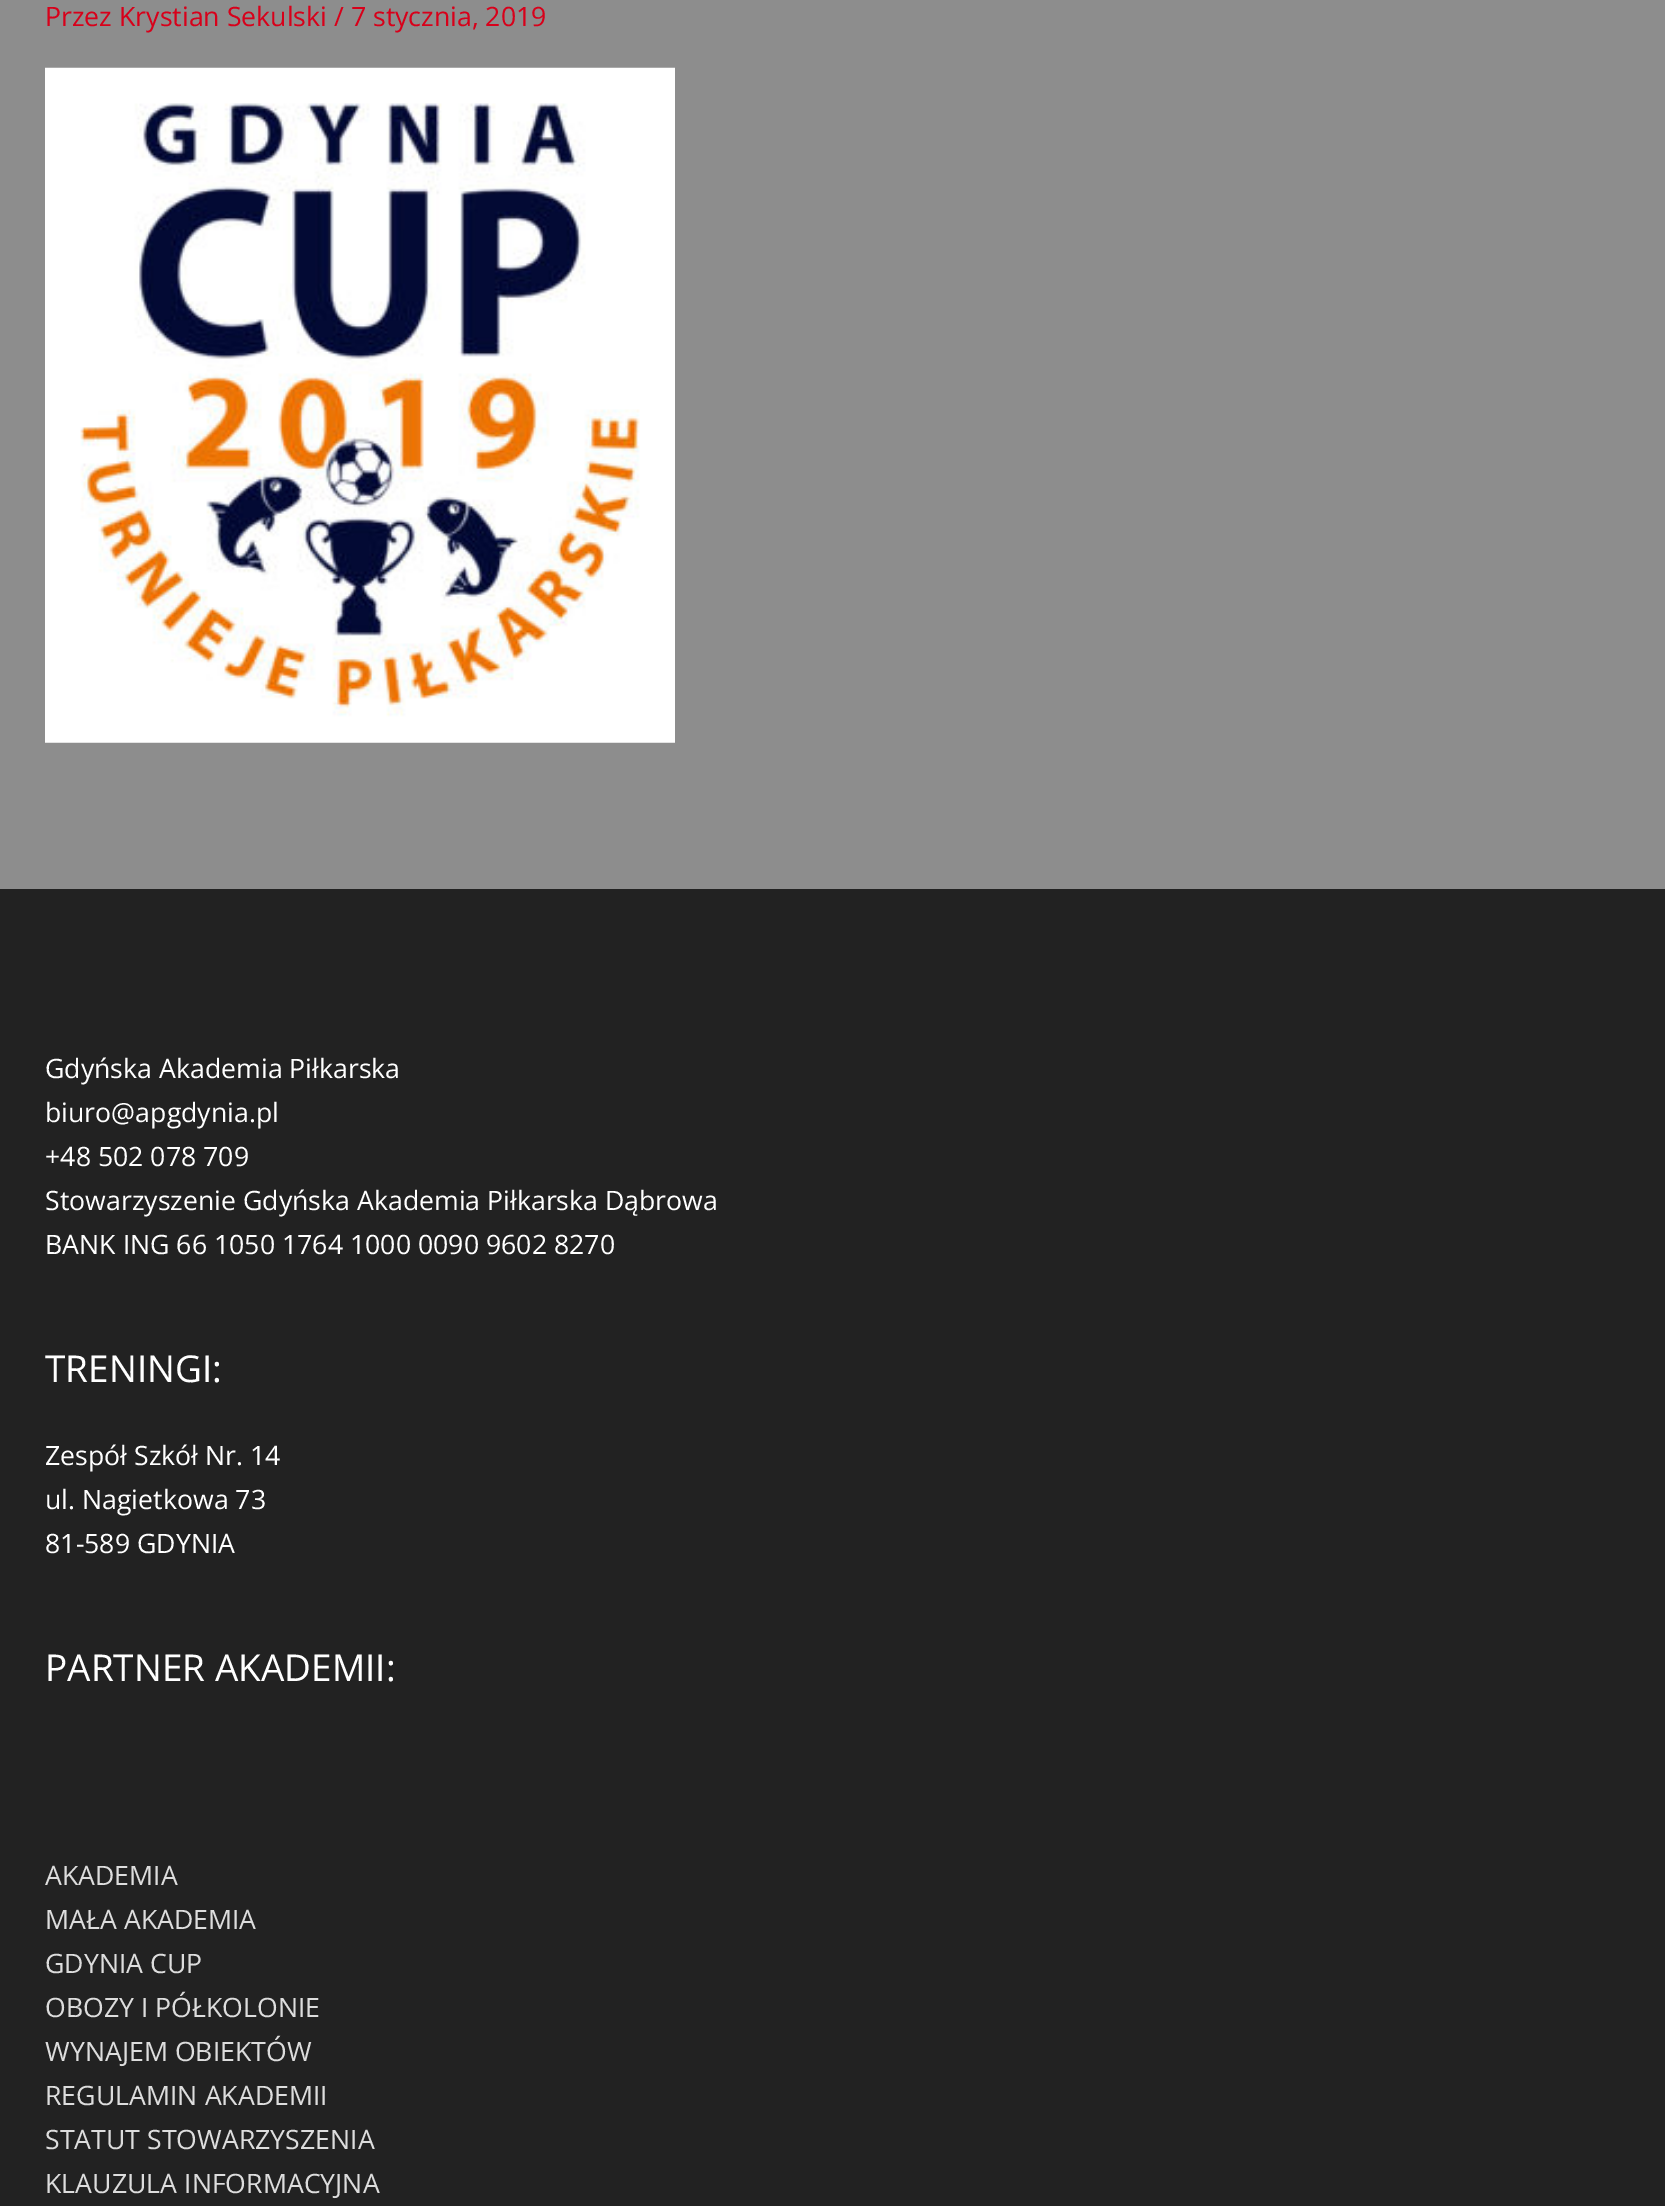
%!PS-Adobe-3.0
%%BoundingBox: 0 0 1665 2206
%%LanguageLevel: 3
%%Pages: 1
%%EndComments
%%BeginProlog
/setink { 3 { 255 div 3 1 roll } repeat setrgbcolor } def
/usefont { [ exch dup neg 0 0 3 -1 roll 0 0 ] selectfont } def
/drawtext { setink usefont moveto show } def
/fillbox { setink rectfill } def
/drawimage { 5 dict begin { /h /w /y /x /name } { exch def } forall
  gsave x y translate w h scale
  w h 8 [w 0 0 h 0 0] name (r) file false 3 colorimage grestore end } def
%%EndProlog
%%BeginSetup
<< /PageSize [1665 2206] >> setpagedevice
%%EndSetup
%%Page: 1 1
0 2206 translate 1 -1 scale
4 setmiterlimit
0 0 1665 2206 141 141 141 fillbox
(Przez Krystian Sekulski / 7 stycznia, 2019) 45 26 /OpenSans-Regular 26.7 216 0 26 drawtext
(assets/img1.rgb) 45 67 630 676 drawimage
0 889 1665 1317 34 34 34 fillbox
(Gdyńska Akademia Piłkarska) 45 1078 /OpenSans-Regular 26.7 255 255 255 drawtext
(biuro@apgdynia.pl) 45 1122 /OpenSans-Regular 26.7 255 255 255 drawtext
(+48 502 078 709) 45 1166 /OpenSans-Regular 26.7 255 255 255 drawtext
(Stowarzyszenie Gdyńska Akademia Piłkarska Dąbrowa) 45 1210 /OpenSans-Regular 26.7 255 255 255 drawtext
(BANK ING 66 1050 1764 1000 0090 9602 8270) 45 1254 /OpenSans-Regular 26.7 255 255 255 drawtext
(TRENINGI:) 45 1382 /OpenSans-Regular 37 255 255 255 drawtext
(Zespół Szkół Nr. 14) 45 1465 /OpenSans-Regular 26.7 255 255 255 drawtext
(ul. Nagietkowa 73) 45 1509 /OpenSans-Regular 26.7 255 255 255 drawtext
(81-589 GDYNIA) 45 1553 /OpenSans-Regular 26.7 255 255 255 drawtext
(PARTNER AKADEMII:) 45 1681 /OpenSans-Regular 37 255 255 255 drawtext
(AKADEMIA) 45 1885 /OpenSans-Regular 26.7 221 221 221 drawtext
(MAŁA AKADEMIA) 45 1929 /OpenSans-Regular 26.7 221 221 221 drawtext
(GDYNIA CUP) 45 1973 /OpenSans-Regular 26.7 221 221 221 drawtext
(OBOZY I PÓŁKOLONIE) 45 2017 /OpenSans-Regular 26.7 221 221 221 drawtext
(WYNAJEM OBIEKTÓW) 45 2061 /OpenSans-Regular 26.7 221 221 221 drawtext
(REGULAMIN AKADEMII) 45 2105 /OpenSans-Regular 26.7 221 221 221 drawtext
(STATUT STOWARZYSZENIA) 45 2149 /OpenSans-Regular 26.7 221 221 221 drawtext
(KLAUZULA INFORMACYJNA) 45 2193 /OpenSans-Regular 26.7 221 221 221 drawtext
showpage
%%EOF
